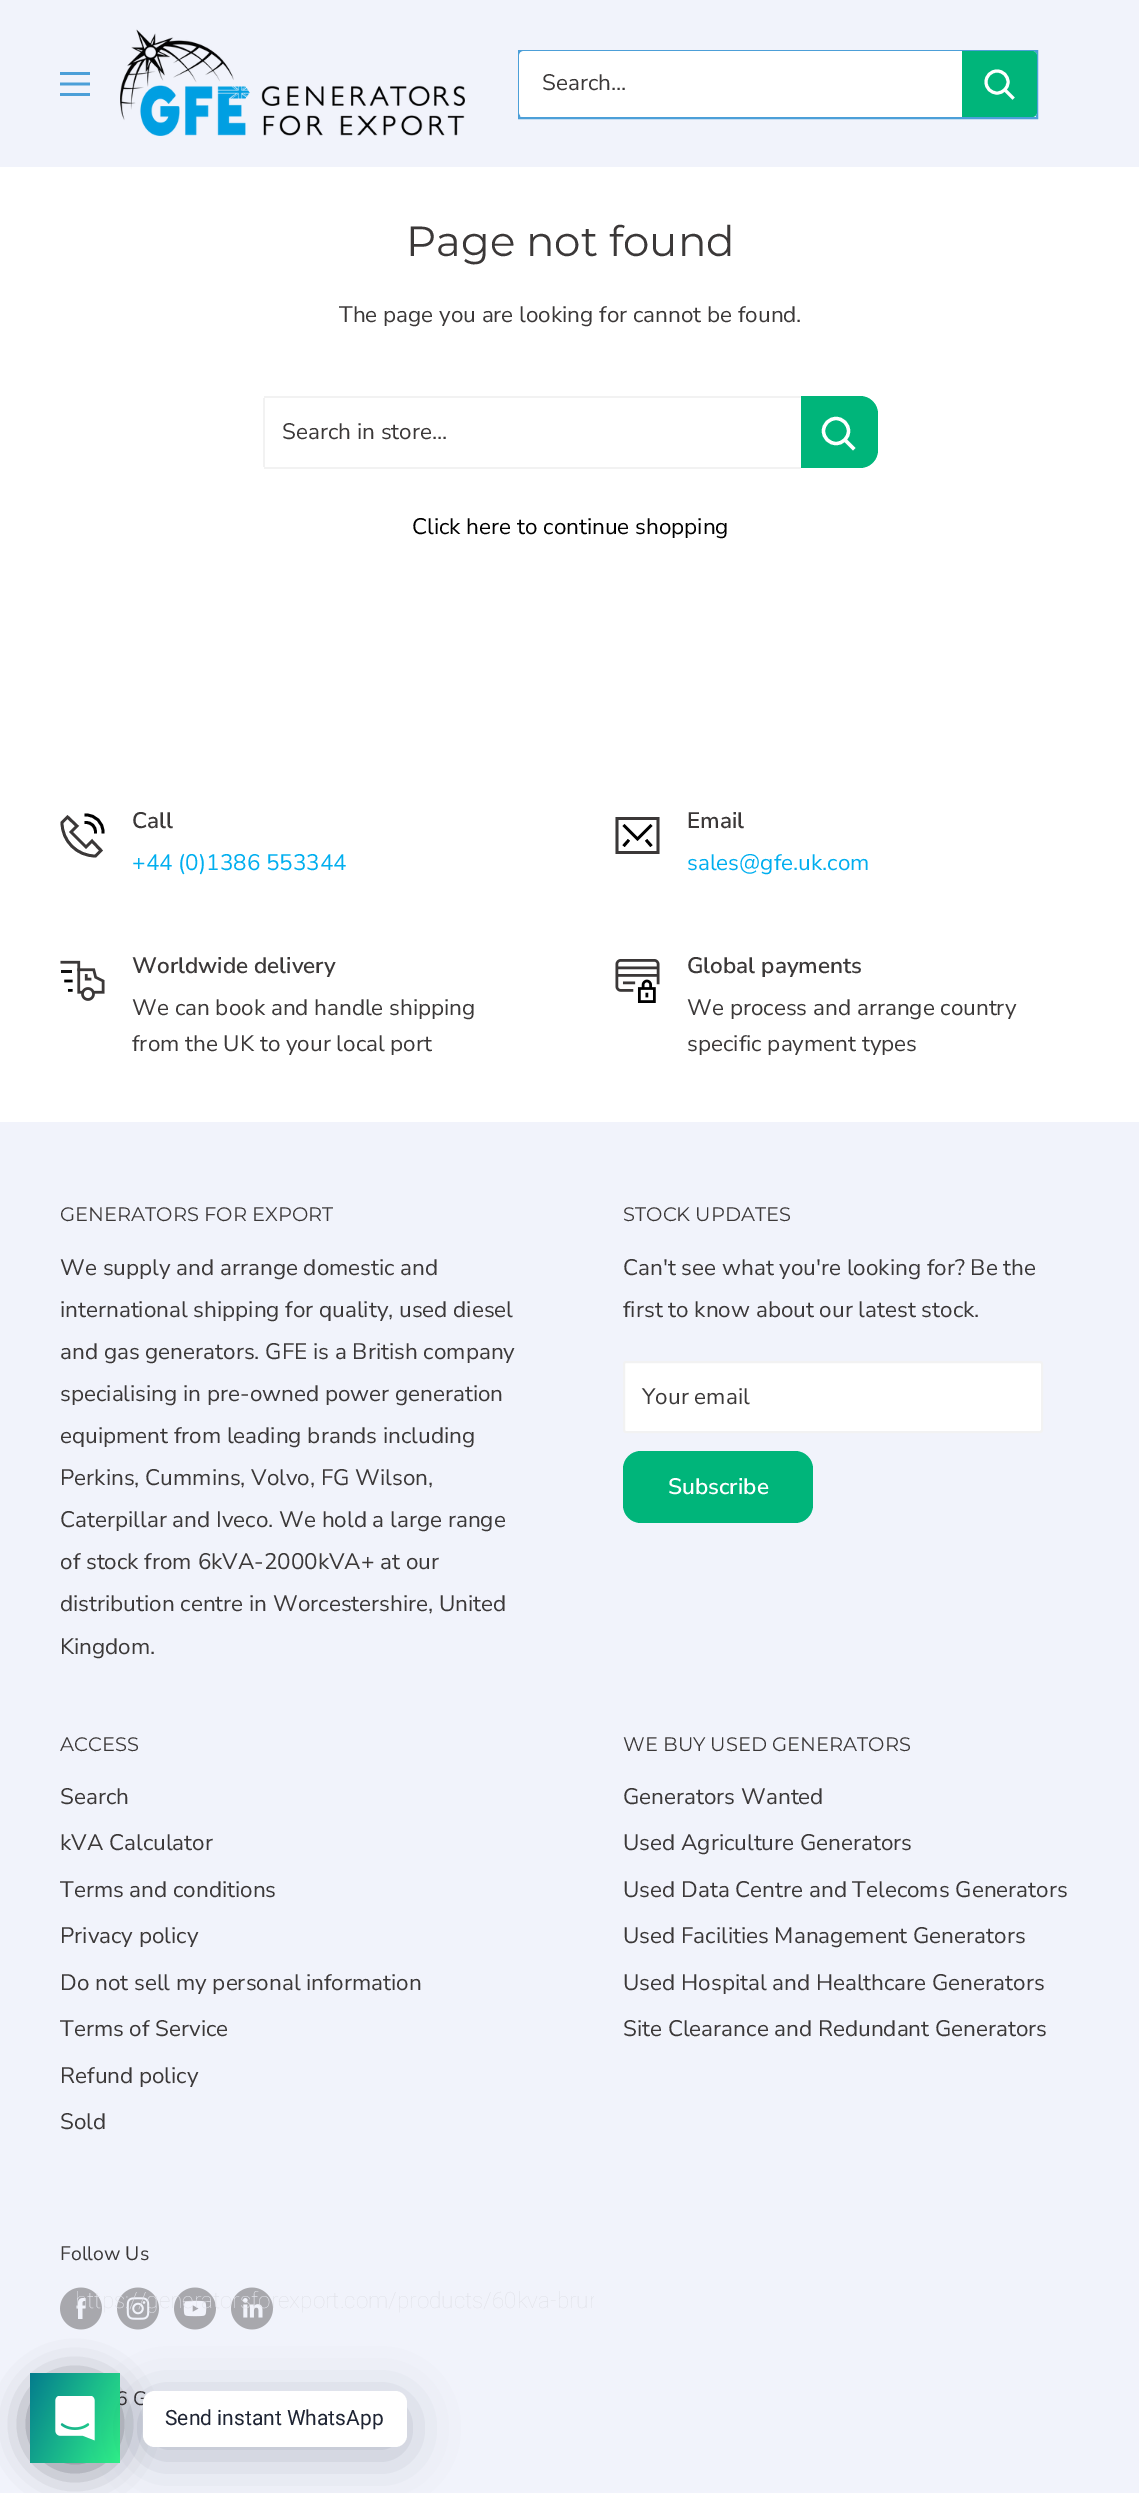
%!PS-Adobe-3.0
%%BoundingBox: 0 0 1139 2493
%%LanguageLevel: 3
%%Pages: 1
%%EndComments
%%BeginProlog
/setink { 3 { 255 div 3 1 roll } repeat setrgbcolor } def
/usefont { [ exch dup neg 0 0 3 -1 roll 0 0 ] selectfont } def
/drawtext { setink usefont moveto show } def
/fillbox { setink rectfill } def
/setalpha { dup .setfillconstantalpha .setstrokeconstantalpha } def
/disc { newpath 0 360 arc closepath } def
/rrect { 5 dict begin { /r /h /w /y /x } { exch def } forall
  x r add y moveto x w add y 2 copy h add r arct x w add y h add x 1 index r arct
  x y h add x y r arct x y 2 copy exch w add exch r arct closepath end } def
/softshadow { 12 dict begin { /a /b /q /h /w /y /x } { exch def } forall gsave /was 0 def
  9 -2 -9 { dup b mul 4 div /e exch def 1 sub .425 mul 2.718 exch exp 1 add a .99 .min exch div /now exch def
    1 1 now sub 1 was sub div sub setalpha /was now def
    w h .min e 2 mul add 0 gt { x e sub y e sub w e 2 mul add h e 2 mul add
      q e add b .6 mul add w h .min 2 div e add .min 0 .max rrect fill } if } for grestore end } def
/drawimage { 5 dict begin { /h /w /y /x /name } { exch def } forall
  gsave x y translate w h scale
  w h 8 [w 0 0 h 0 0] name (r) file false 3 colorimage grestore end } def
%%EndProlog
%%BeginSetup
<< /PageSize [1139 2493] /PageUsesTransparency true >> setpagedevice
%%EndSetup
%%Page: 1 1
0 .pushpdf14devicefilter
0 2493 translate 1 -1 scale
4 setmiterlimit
0 0 1139 2493 255 255 255 fillbox
0 0 1139 167 241 243 251 fillbox
(assets/img1.rgb) 60 72 30 24 drawimage
(assets/img2.rgb) 120 29 345 107 drawimage
76 159 216 setink
2 setlinewidth
519 51 518 67 rectstroke
255 255 255 setink
519 51 518 66 5 rrect fill
(Search...) 542 90 /NunitoSans-Regular 22.5 59 56 56 drawtext
0 181 122 setink
962 51 moveto 1032 51 lineto 1035 51 1037 53 1037 56 curveto 1037 112 lineto 1037 115 1035 117 1032 117 curveto 962 117 lineto closepath fill
255 255 255 setink
3 setlinewidth
2 setlinecap
1012.5 97.5 moveto 1005 90 lineto stroke
0 setlinecap
997 82 11 disc stroke
(Page not found) 406 256 /Montserrat-Regular 42 59 56 56 drawtext
(The page you are looking for cannot be found.) 339 322 /NunitoSans-Regular 22.5 59 56 56 drawtext
264 396 537 2 242 242 242 fillbox
264 467 537 2 242 242 242 fillbox
263 398 2 69 242 242 242 fillbox
(Search in store...) 282 439 /NunitoSans-Regular 22.5 59 56 56 drawtext
0 181 122 setink
801 396 moveto 860 396 lineto 870 396 878 404 878 414 curveto 878 450 lineto 878 460 870 468 860 468 curveto 801 468 lineto closepath fill
255 255 255 setink
3.3 setlinewidth
2 setlinecap
853 448 moveto 845 440 lineto stroke
0 setlinecap
836 431 12.5 disc stroke
(Click here to continue shopping) 412 534 /NunitoSans-Regular 22.5 0 0 0 drawtext
59 56 56 setink
2.8 setlinewidth
2 setlinecap
92 841 moveto 86 847 lineto 71 832 lineto 77 826 lineto 67.5 817 lineto 62 822.5 lineto 62 841 77 856 95.5 856 curveto 101 850.5 lineto closepath stroke
0 0 0 setink
86 815 moveto 95.5 815 103 822.5 103 832 curveto 86 822.5 moveto 91.5 822.5 95.5 826.5 95.5 832 curveto stroke
(Call) 132 828 /NunitoSans-SemiBold 22.5 59 56 56 drawtext
(+44 \(0\)1386 553344) 132 870 /NunitoSans-Regular 22.5 0 174 239 drawtext
0 0 0 setink
650.5 826 moveto 637.5 839 lineto 624.5 826 lineto stroke
59 56 56 setink
617 818.5 moveto 658 818.5 lineto 658 852.5 lineto 617 852.5 lineto closepath stroke
0 0 0 setink
628 841 moveto 624.5 845 lineto 647 841 moveto 650.5 845 lineto stroke
(Email) 687 828 /NunitoSans-SemiBold 22.5 59 56 56 drawtext
(sales@gfe.uk.com) 687 870 /NunitoSans-Regular 22.5 0 174 239 drawtext
(assets/img3.rgb) 60 960 45 41 drawimage
(Worldwide delivery) 132 973 /NunitoSans-SemiBold 22.5 59 56 56 drawtext
(We can book and handle shipping) 132 1015 /NunitoSans-Regular 22.5 59 56 56 drawtext
(from the UK to your local port) 132 1051 /NunitoSans-Regular 22.5 59 56 56 drawtext
(assets/img4.rgb) 615 959 45 44 drawimage
(Global payments) 687 973 /NunitoSans-SemiBold 22.5 59 56 56 drawtext
(We process and arrange country) 687 1015 /NunitoSans-Regular 22.5 59 56 56 drawtext
(specific payment types) 687 1051 /NunitoSans-Regular 22.5 59 56 56 drawtext
0 1122 1139 1371 241 243 251 fillbox
(GENERATORS FOR EXPORT) 60 1221 /Montserrat-Regular 19.5 59 56 56 drawtext
(We supply and arrange domestic and) 60 1275 /NunitoSans-Regular 22.5 59 56 56 drawtext
(international shipping for quality, used diesel) 60 1317 /NunitoSans-Regular 22.5 59 56 56 drawtext
(and gas generators. GFE is a British company) 60 1359 /NunitoSans-Regular 22.5 59 56 56 drawtext
(specialising in pre-owned power generation) 60 1401 /NunitoSans-Regular 22.5 59 56 56 drawtext
(equipment from leading brands including) 60 1443 /NunitoSans-Regular 22.5 59 56 56 drawtext
(Perkins, Cummins, Volvo, FG Wilson,) 60 1485 /NunitoSans-Regular 22.5 59 56 56 drawtext
(Caterpillar and Iveco. We hold a large range) 60 1527 /NunitoSans-Regular 22.5 59 56 56 drawtext
(of stock from 6kVA-2000kVA+ at our) 60 1569 /NunitoSans-Regular 22.5 59 56 56 drawtext
(distribution centre in Worcestershire, United) 60 1611 /NunitoSans-Regular 22.5 59 56 56 drawtext
(Kingdom.) 60 1654 /NunitoSans-Regular 22.5 59 56 56 drawtext
(STOCK UPDATES) 623 1221 /Montserrat-Regular 19.5 59 56 56 drawtext
(Can't see what you're looking for? Be the) 623 1275 /NunitoSans-Regular 22.5 59 56 56 drawtext
(first to know about our latest stock.) 623 1317 /NunitoSans-Regular 22.5 59 56 56 drawtext
255 255 255 setink
624 1362 418 70 2 rrect gsave fill grestore
242 242 242 setink
2 setlinewidth
0 setlinecap
stroke
(Your email) 642 1404 /NunitoSans-Regular 22.5 59 56 56 drawtext
0 181 122 setink
623 1451 190 72 18 rrect fill
(Subscribe) 668 1494 /NunitoSans-SemiBold 22.5 255 255 255 drawtext
(ACCESS) 60 1751 /Montserrat-Regular 19.5 59 56 56 drawtext
(Search) 60 1804 /NunitoSans-Regular 22.5 59 56 56 drawtext
(kVA Calculator) 60 1850 /NunitoSans-Regular 22.5 59 56 56 drawtext
(Terms and conditions) 60 1897 /NunitoSans-Regular 22.5 59 56 56 drawtext
(Privacy policy) 60 1943 /NunitoSans-Regular 22.5 59 56 56 drawtext
(Do not sell my personal information) 60 1990 /NunitoSans-Regular 22.5 59 56 56 drawtext
(Terms of Service) 60 2036 /NunitoSans-Regular 22.5 59 56 56 drawtext
(Refund policy) 60 2083 /NunitoSans-Regular 22.5 59 56 56 drawtext
(Sold) 60 2129 /NunitoSans-Regular 22.5 59 56 56 drawtext
(WE BUY USED GENERATORS) 623 1751 /Montserrat-Regular 19.5 59 56 56 drawtext
(Generators Wanted) 623 1804 /NunitoSans-Regular 22.5 59 56 56 drawtext
(Used Agriculture Generators) 623 1850 /NunitoSans-Regular 22.5 59 56 56 drawtext
(Used Data Centre and Telecoms Generators) 623 1897 /NunitoSans-Regular 22.5 59 56 56 drawtext
(Used Facilities Management Generators) 623 1943 /NunitoSans-Regular 22.5 59 56 56 drawtext
(Used Hospital and Healthcare Generators) 623 1990 /NunitoSans-Regular 22.5 59 56 56 drawtext
(Site Clearance and Redundant Generators) 623 2036 /NunitoSans-Regular 22.5 59 56 56 drawtext
(Follow Us) 60 2260 /NunitoSans-Regular 19.5 59 56 56 drawtext
(assets/img5.rgb) 60 2287 42 43 drawimage
(assets/img6.rgb) 117 2287 42 43 drawimage
(assets/img7.rgb) 174 2287 42 43 drawimage
(assets/img8.rgb) 231 2287 42 43 drawimage
(6 G) 116 2405 /NunitoSans-Regular 19.5 59 56 56 drawtext
gsave
30 2259 moveto 594 2259 lineto 594 2481 lineto 594 2487.5 588.5 2493 582 2493 curveto 42 2493 lineto 35.5 2493 30 2487.5 30 2481 curveto closepath clip newpath
(https://generatorsforexport.com/products/60kva-brun) 75 2308 /Roboto-Thin 22.5 225 226 233 drawtext
grestore
2 6 16 setink
30 2379 90 90 45 18 0.5 softshadow
gsave 30 2373 moveto 120 2373 lineto 120 2463 lineto 30 2463 lineto closepath clip newpath
<< /ShadingType 2 /ColorSpace /DeviceRGB /Coords [21 2393 129 2443] /Extend [true true] /Function << /FunctionType 2 /Domain [0 1] /C0 [0.016 0.486 0.553] /C1 [0.184 0.949 0.537] /N 1 >> >> shfill grestore
0 18 46 setink
143 2400 264 56 12 24 0.24 softshadow
(assets/img9.rgb) 55 2396 40 45 drawimage
255 255 255 setink
143 2391 264 56 12 rrect fill
(Send instant WhatsApp) 165 2425 /Roboto-Regular 21 30 36 51 drawtext
.poppdf14devicefilter showpage
%%EOF
